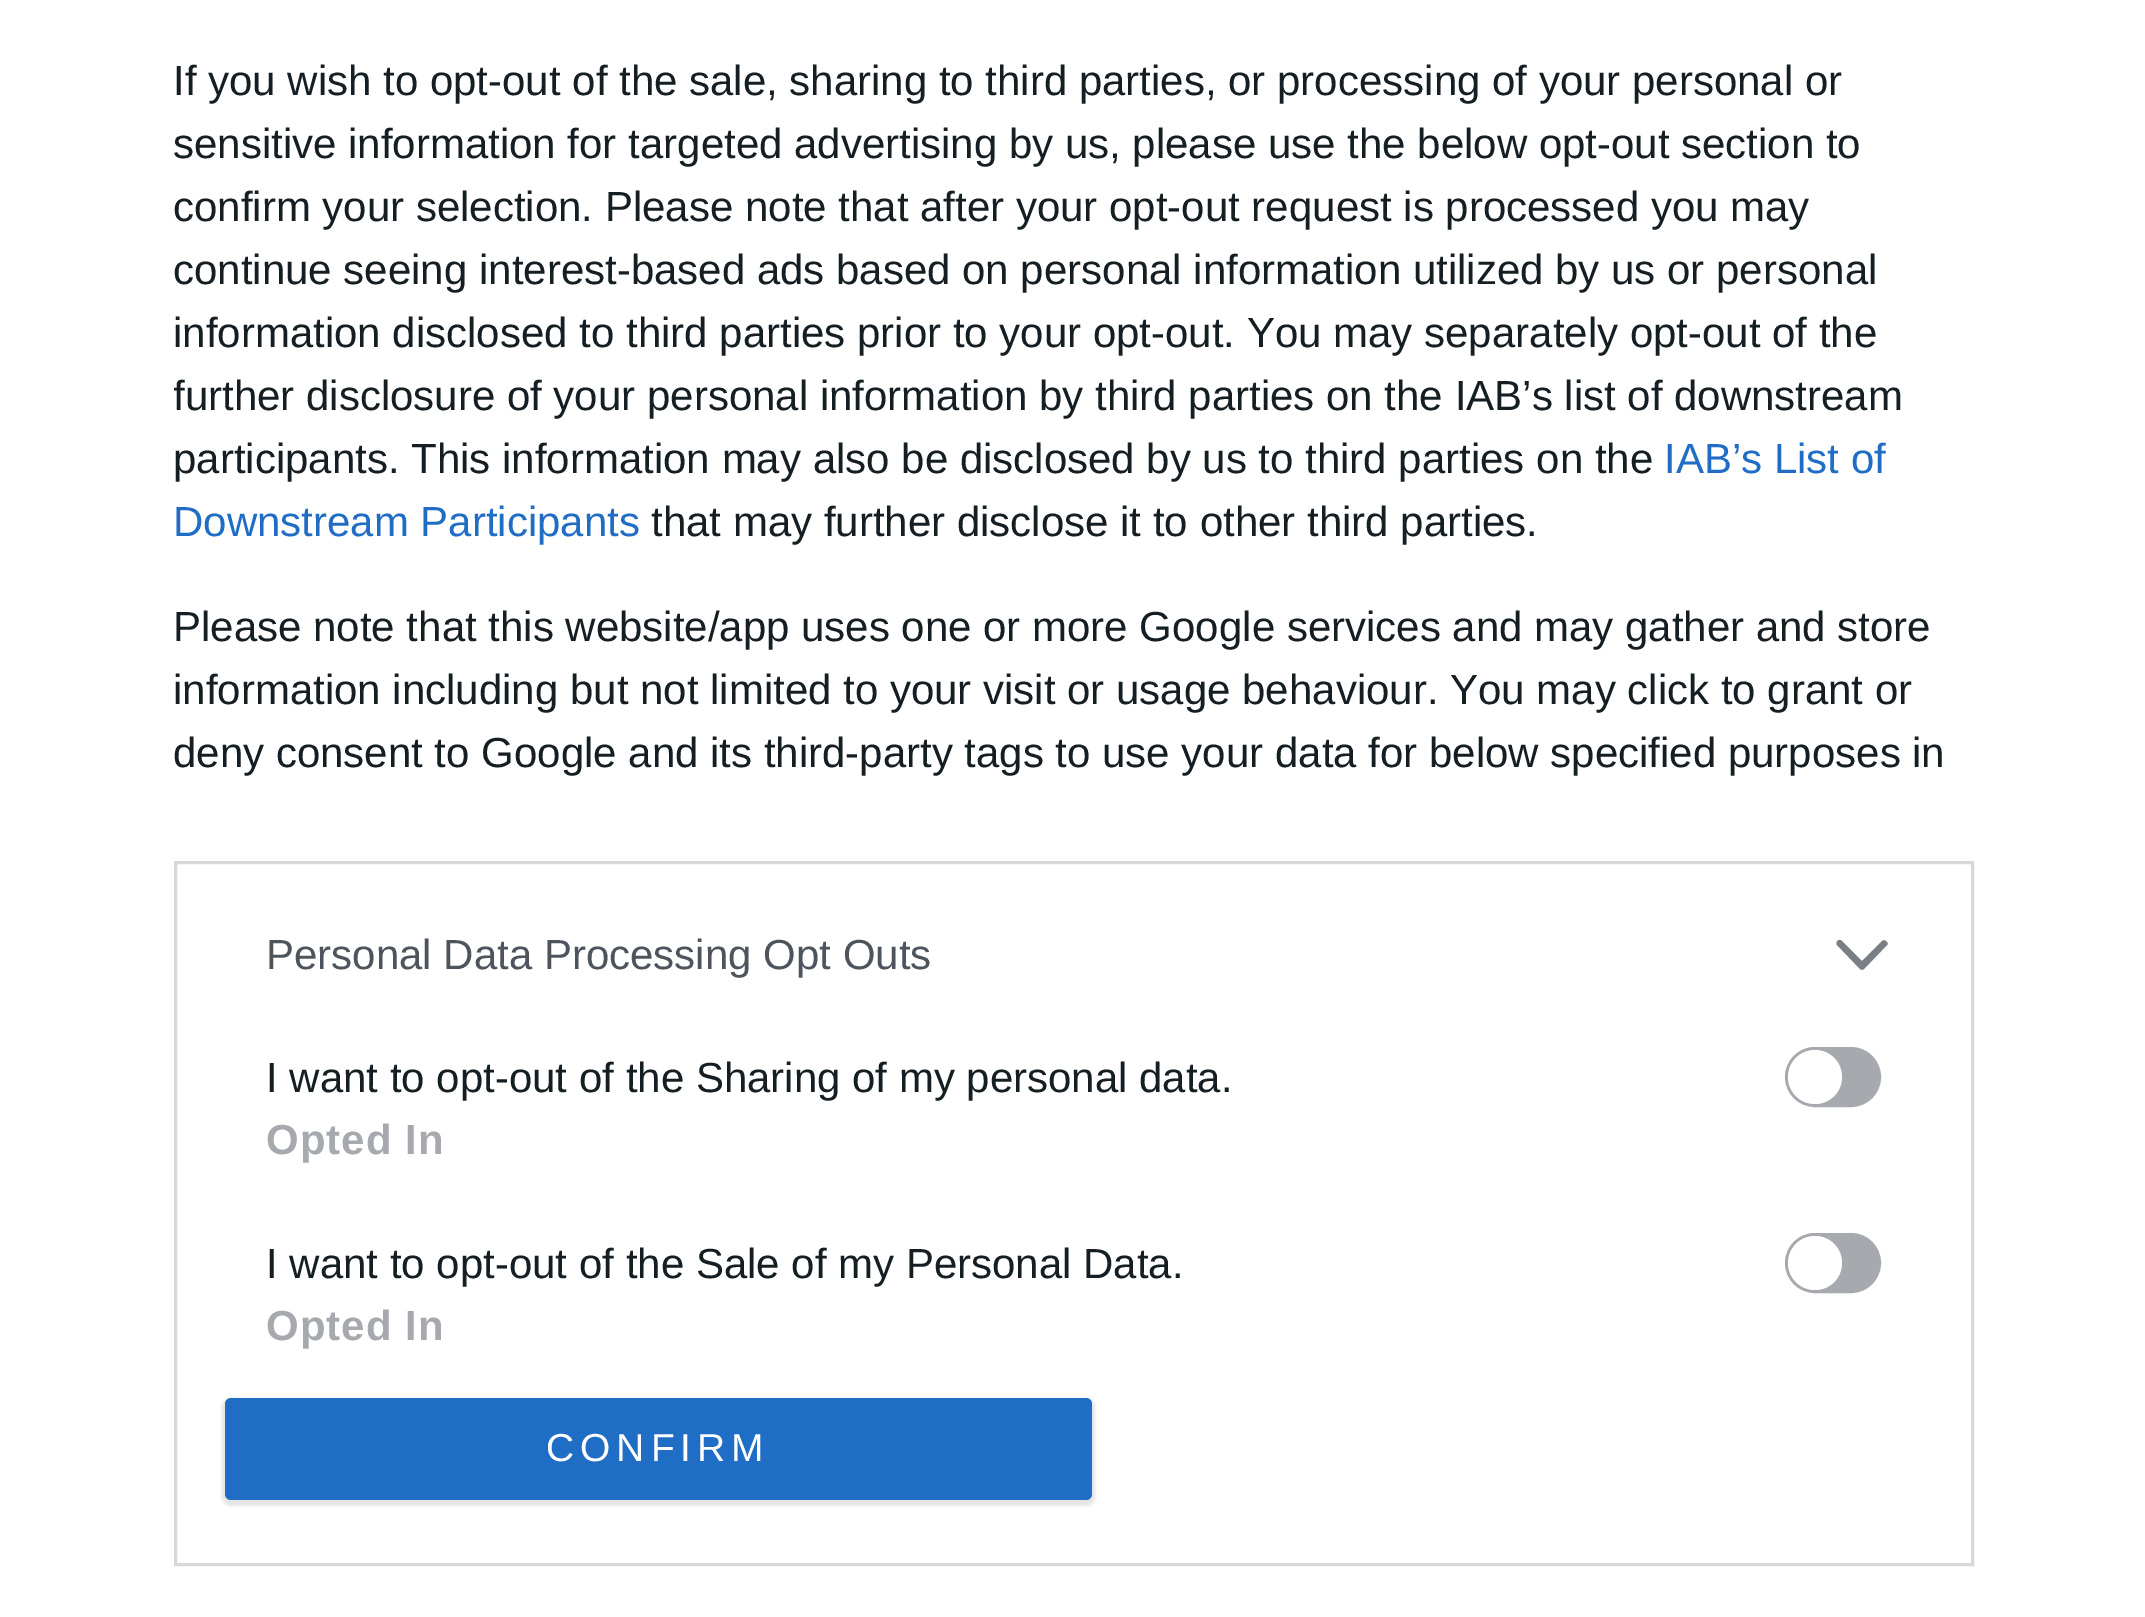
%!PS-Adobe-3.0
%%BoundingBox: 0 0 2145 1617
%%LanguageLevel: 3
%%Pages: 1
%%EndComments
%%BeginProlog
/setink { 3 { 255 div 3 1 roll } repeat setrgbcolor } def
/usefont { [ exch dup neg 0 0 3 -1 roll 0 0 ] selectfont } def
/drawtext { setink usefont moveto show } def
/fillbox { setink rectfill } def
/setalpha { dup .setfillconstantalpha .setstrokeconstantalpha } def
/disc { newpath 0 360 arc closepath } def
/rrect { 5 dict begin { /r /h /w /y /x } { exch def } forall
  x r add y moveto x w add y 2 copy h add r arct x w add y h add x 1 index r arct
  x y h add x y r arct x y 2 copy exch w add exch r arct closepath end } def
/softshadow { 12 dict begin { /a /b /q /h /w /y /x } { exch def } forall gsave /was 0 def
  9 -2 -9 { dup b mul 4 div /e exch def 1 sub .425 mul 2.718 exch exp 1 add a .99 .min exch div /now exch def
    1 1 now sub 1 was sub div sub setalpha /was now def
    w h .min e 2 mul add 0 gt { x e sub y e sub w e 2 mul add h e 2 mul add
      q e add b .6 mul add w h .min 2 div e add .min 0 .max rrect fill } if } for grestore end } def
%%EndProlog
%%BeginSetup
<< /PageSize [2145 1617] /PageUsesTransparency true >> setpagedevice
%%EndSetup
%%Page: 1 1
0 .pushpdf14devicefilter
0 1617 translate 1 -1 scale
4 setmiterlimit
0 0 2145 1617 255 255 255 fillbox
(If you wish to opt-out of the sale, sharing to third parties, or processing of your personal or) 173 95 /LiberationSans-Regular 42 20 30 35 drawtext
(sensitive information for targeted advertising by us, please use the below opt-out section to) 173 158 /LiberationSans-Regular 42 20 30 35 drawtext
(confirm your selection. Please note that after your opt-out request is processed you may) 173 221 /LiberationSans-Regular 42 20 30 35 drawtext
(continue seeing interest-based ads based on personal information utilized by us or personal) 173 284 /LiberationSans-Regular 42 20 30 35 drawtext
(information disclosed to third parties prior to your opt-out. You may separately opt-out of the) 173 347 /LiberationSans-Regular 42 20 30 35 drawtext
gsave
174 6 1800 810 rectclip
(further disclosure of your personal information by third parties on the IAB’s list of downstream) 173 410 /LiberationSans-Regular 42 20 30 35 drawtext
grestore
(participants. This information may also be disclosed by us to third parties on the) 173 473 /LiberationSans-Regular 42 20 30 35 drawtext
(IAB’s List of) 1664 473 /LiberationSans-Regular 42 32 109 197 drawtext
(Downstream Participants) 173 536 /LiberationSans-Regular 42 32 109 197 drawtext
(that may further disclose it to other third parties.) 651 536 /LiberationSans-Regular 42 20 30 35 drawtext
(Please note that this website/app uses one or more Google services and may gather and store) 173 641 /LiberationSans-Regular 42 20 30 35 drawtext
(information including but not limited to your visit or usage behaviour. You may click to grant or) 173 704 /LiberationSans-Regular 42 20 30 35 drawtext
(deny consent to Google and its third-party tags to use your data for below specified purposes in) 173 767 /LiberationSans-Regular 42 20 30 35 drawtext
216 216 216 setink
3 setlinewidth
175.5 862.5 1797 702 rectstroke
(Personal Data Processing Opt Outs) 266 969 /LiberationSans-Regular 42 77 84 93 drawtext
122 127 133 setink
1860 969 moveto 1837 945 lineto 1835 942 1839 938 1842 941 curveto 1862 961 lineto 1882 941 lineto 1883 940 1885 940 1886 941 curveto 1887 942 lineto 1888 943 1888 944 1887 945 curveto 1864 969 lineto 1863 970 1861 970 1860 969 curveto closepath fill
(I want to opt-out of the Sharing of my personal data.) 266 1092 /LiberationSans-Regular 42 20 30 35 drawtext
166 169 174 setink
1786.5 1048.5 93 57 28.5 rrect gsave fill grestore
stroke
255 255 255 setink
1815 1077 27 disc fill
/LiberationSans-Bold 42 usefont
166 169 174 setink
266 1154 moveto 1 0 (Opted In) ashow
(I want to opt-out of the Sale of my Personal Data.) 266 1278 /LiberationSans-Regular 42 20 30 35 drawtext
166 169 174 setink
1786.5 1234.5 93 57 28.5 rrect gsave fill grestore
stroke
255 255 255 setink
1815 1263 27 disc fill
/LiberationSans-Bold 42 usefont
166 169 174 setink
266 1340 moveto 1 0 (Opted In) ashow
0 0 0 setink
222 1398 873 108 9 1.5 0.1 softshadow
32 109 197 setink
225 1398 867 102 6 rrect fill
/LiberationSans-Regular 39 usefont
255 255 255 setink
546 1461 moveto 6 0 (CONFIRM) ashow
.poppdf14devicefilter showpage
%%EOF
